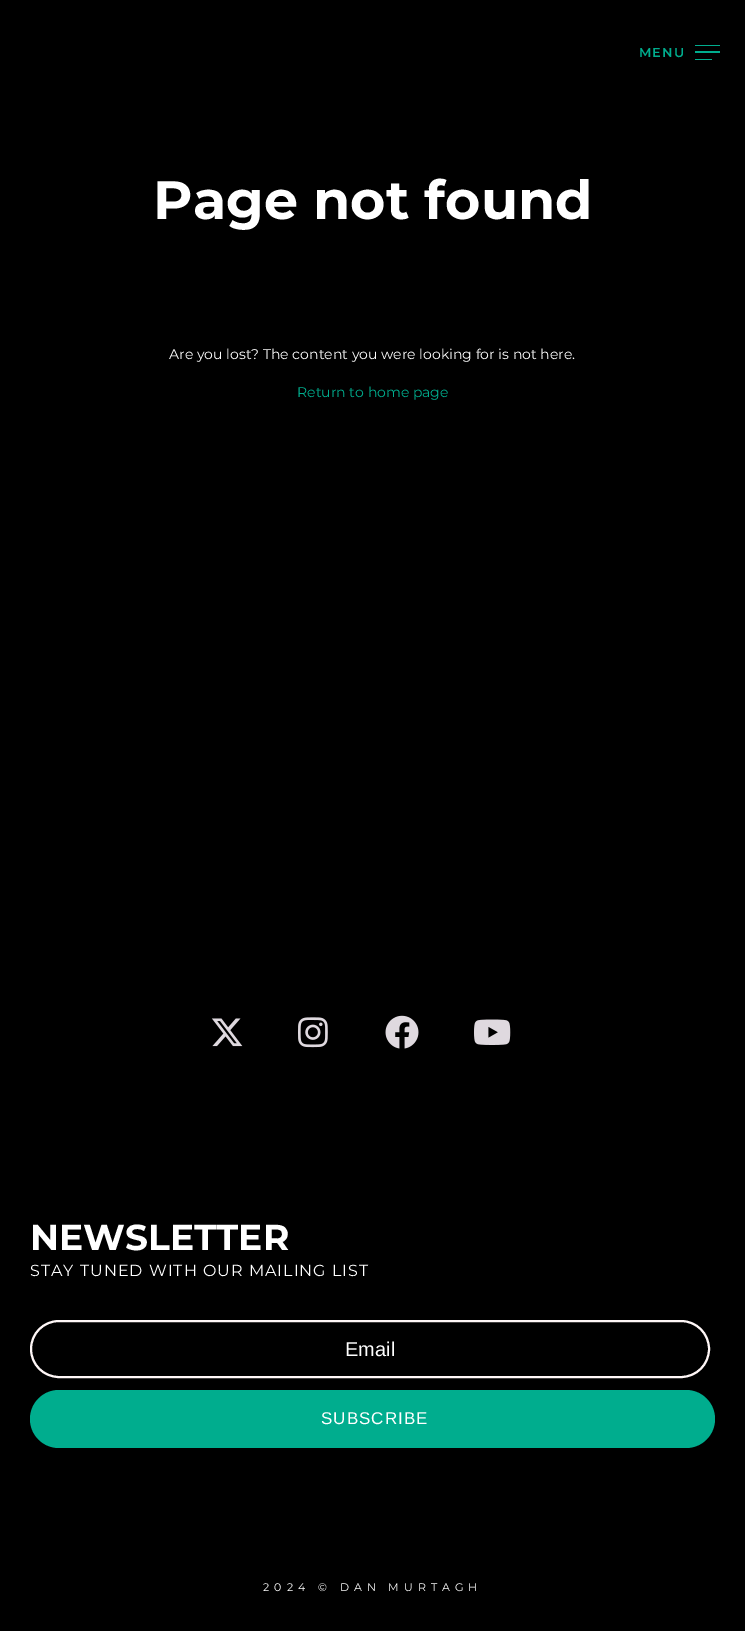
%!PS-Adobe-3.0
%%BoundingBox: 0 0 745 1631
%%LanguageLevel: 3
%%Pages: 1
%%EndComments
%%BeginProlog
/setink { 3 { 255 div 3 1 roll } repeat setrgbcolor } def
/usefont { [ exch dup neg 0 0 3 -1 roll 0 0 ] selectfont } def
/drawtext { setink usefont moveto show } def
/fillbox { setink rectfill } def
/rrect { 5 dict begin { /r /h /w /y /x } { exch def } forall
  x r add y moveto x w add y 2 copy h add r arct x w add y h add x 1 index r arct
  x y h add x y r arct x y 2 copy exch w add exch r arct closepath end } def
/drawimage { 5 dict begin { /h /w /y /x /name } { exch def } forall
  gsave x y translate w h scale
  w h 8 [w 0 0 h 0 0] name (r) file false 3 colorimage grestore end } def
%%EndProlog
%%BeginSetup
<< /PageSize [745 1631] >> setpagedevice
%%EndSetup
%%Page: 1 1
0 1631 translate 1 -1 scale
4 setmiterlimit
0 0 745 1631 0 0 0 fillbox
/Montserrat-SemiBold 13 usefont
0 173 142 setink
639 57 moveto 1 0 (MENU) ashow
695 51 25 2 0 173 142 fillbox
695 45 25 1 0 173 142 fillbox
695 59 17 1 0 173 142 fillbox
(Page not found) 153 219 /Montserrat-Bold 54 255 255 255 drawtext
(Are you lost? The content you were looking for is not here.) 169 359 /Montserrat-Regular 14 255 255 255 drawtext
(Return to home page) 297 397 /Montserrat-Regular 14 0 173 142 drawtext
(assets/img1.rgb) 211 1018 32 29 drawimage
(assets/img2.rgb) 298 1017 30 31 drawimage
(assets/img3.rgb) 385 1015 34 34 drawimage
(assets/img4.rgb) 474 1019 37 26 drawimage
(NEWSLETTER) 30 1250 /Montserrat-Bold 36 255 255 255 drawtext
/Montserrat-Regular 16 usefont
30 1276 moveto 1 0 (STAY TUNED WITH OUR MAILING LIST) ashow
255 247 247 setink
2 setlinewidth
31 1321 678 56 28 rrect stroke
(Email) 345 1356 /LiberationSans-Regular 20 255 255 255 drawtext
0 173 142 setink
30 1390 685 58 29 rrect fill
/LiberationSans-Regular 17 usefont
255 255 255 setink
321 1424 moveto 1 0 (SUBSCRIBE) ashow
/Montserrat-Regular 11 usefont
263 1591 moveto 5 0 (2024 © DAN MURTAGH) ashow
showpage
%%EOF
